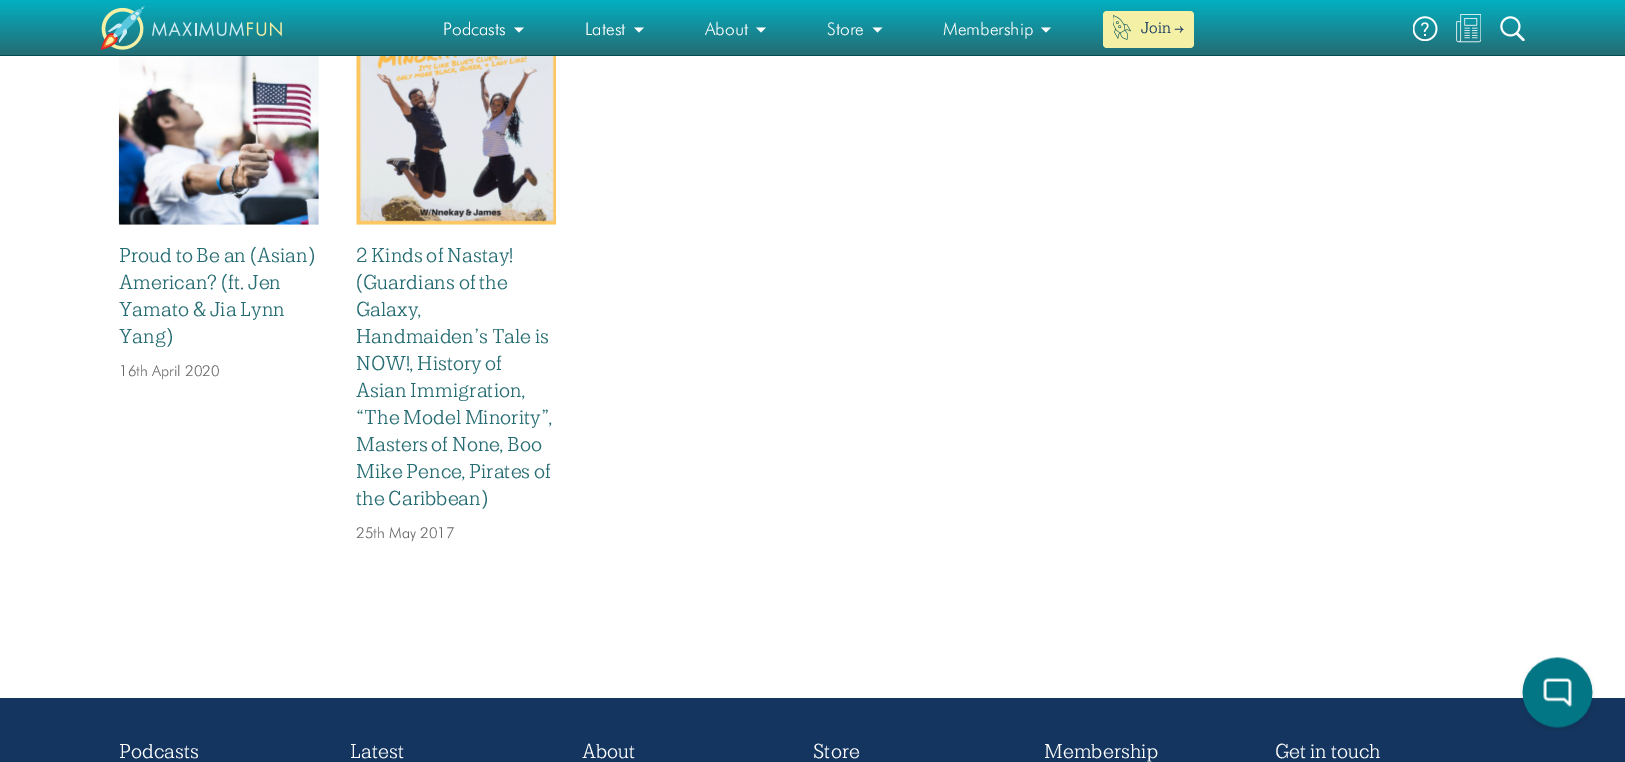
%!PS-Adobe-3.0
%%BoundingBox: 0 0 1625 762
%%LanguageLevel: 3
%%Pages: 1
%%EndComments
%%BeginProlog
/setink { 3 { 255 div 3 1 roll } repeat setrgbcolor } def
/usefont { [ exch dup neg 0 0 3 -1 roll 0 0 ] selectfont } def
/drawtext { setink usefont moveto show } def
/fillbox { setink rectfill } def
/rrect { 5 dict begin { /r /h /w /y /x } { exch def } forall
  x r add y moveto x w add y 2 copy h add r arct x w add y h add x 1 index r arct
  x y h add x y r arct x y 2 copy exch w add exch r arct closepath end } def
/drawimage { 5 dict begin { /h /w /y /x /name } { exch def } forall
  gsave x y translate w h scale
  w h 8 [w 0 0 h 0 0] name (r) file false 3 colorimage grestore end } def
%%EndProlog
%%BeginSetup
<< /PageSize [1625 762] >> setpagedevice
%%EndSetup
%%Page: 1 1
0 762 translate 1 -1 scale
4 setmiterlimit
0 0 1625 762 20 53 95 fillbox
gsave 0 0 moveto 1625 0 lineto 1625 55 lineto 0 55 lineto closepath clip newpath
<< /ShadingType 2 /ColorSpace /DeviceRGB /Coords [813 0 813 55] /Extend [true true] /Function << /FunctionType 2 /Domain [0 1] /C0 [0.008 0.69 0.761] /C1 [0.145 0.424 0.451] /N 1 >> >> shfill grestore
0 55 1625 1 1 77 85 fillbox
(assets/img1.rgb) 100 6 182 44 drawimage
(Podcasts) 443 35 /Futura-Light 17.5 255 255 255 drawtext
514 27.5 moveto 524 27.5 lineto 519 32.5 lineto closepath fill
(Latest) 585 35 /Futura-Light 17.5 255 255 255 drawtext
634 27.5 moveto 644 27.5 lineto 639 32.5 lineto closepath fill
(About) 705 35 /Futura-Light 17.5 255 255 255 drawtext
756 27.5 moveto 766 27.5 lineto 761 32.5 lineto closepath fill
(Store) 827 35 /Futura-Light 17.5 255 255 255 drawtext
872.5 27.5 moveto 882.5 27.5 lineto 877.5 32.5 lineto closepath fill
(Membership) 943 35 /Futura-Light 17.5 255 255 255 drawtext
1041 27.5 moveto 1051 27.5 lineto 1046 32.5 lineto closepath fill
244 241 166 setink
1103 11 91 37 4 rrect fill
(assets/img2.rgb) 1113 15 18 25 drawimage
(Join →) 1141 33 /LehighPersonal-Regular 17.5 20 53 95 drawtext
(assets/img3.rgb) 1413 16 25 25 drawimage
(assets/img4.rgb) 1456 14 25 29 drawimage
(assets/img5.rgb) 1500 16 25 25 drawimage
0 56 1625 642 255 255 255 fillbox
(assets/img6.rgb) 118 56 201 169 drawimage
(Proud to Be an \(Asian\)) 119 262 /LehighPersonal-Regular 22.5 37 108 115 drawtext
(American? \(ft. Jen) 119 289 /LehighPersonal-Regular 22.5 37 108 115 drawtext
(Yamato & Jia Lynn) 119 316 /LehighPersonal-Regular 22.5 37 108 115 drawtext
(Yang\)) 119 343 /LehighPersonal-Regular 22.5 37 108 115 drawtext
(16th April 2020) 119 376 /Futura-Light 15 102 102 102 drawtext
(assets/img7.rgb) 356 56 201 169 drawimage
(2 Kinds of Nastay!) 356 262 /LehighPersonal-Regular 22.5 37 108 115 drawtext
(\(Guardians of the) 356 289 /LehighPersonal-Regular 22.5 37 108 115 drawtext
(Galaxy,) 356 316 /LehighPersonal-Regular 22.5 37 108 115 drawtext
(Handmaiden’s Tale is) 356 343 /LehighPersonal-Regular 22.5 37 108 115 drawtext
(NOW!, History of) 356 370 /LehighPersonal-Regular 22.5 37 108 115 drawtext
(Asian Immigration,) 356 397 /LehighPersonal-Regular 22.5 37 108 115 drawtext
(“The Model Minority”,) 356 424 /LehighPersonal-Regular 22.5 37 108 115 drawtext
(Masters of None, Boo) 356 451 /LehighPersonal-Regular 22.5 37 108 115 drawtext
(Mike Pence, Pirates of) 356 478 /LehighPersonal-Regular 22.5 37 108 115 drawtext
(the Caribbean\)) 356 505 /LehighPersonal-Regular 22.5 37 108 115 drawtext
(25th May 2017) 356 538 /Futura-Light 15 102 102 102 drawtext
(assets/img8.rgb) 1520 657 75 73 drawimage
(Podcasts) 119 758 /LehighPersonal-Regular 22.5 255 255 255 drawtext
(Latest) 350 758 /LehighPersonal-Regular 22.5 255 255 255 drawtext
(About) 582 758 /LehighPersonal-Regular 22.5 255 255 255 drawtext
(Store) 813 758 /LehighPersonal-Regular 22.5 255 255 255 drawtext
(Membership) 1044 758 /LehighPersonal-Regular 22.5 255 255 255 drawtext
(Get in touch) 1275 758 /LehighPersonal-Regular 22.5 255 255 255 drawtext
showpage
%%EOF
